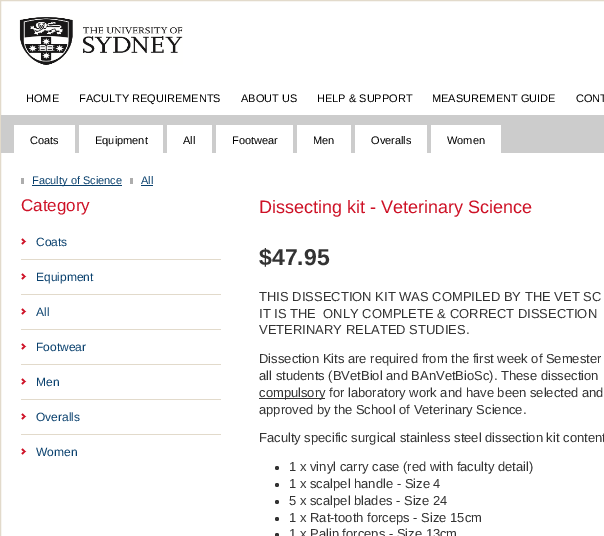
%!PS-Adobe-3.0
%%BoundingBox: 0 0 604 536
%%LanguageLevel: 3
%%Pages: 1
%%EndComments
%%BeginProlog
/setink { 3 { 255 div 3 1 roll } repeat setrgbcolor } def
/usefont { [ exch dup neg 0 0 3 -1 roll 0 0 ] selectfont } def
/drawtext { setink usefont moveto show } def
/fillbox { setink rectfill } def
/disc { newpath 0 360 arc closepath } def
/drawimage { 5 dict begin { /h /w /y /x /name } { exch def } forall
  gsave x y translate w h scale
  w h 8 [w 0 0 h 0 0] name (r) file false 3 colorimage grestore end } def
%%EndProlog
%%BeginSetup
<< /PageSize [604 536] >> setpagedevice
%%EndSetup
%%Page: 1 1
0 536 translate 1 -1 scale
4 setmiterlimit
0 0 604 536 255 255 255 fillbox
226 218 203 setink
0.5 0.5 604 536 rectstroke
(assets/img1.rgb) 19 17 164 48 drawimage
(HOME) 26 102 /LiberationSans-Regular 11 0 0 0 drawtext
(FACULTY REQUIREMENTS) 79 102 /LiberationSans-Regular 11 0 0 0 drawtext
(ABOUT US) 241 102 /LiberationSans-Regular 11 0 0 0 drawtext
(HELP & SUPPORT) 317 102 /LiberationSans-Regular 11 0 0 0 drawtext
(MEASUREMENT GUIDE) 432 102 /LiberationSans-Regular 11 0 0 0 drawtext
(CONT) 576 102 /LiberationSans-Regular 11 0 0 0 drawtext
1 115 603 38 204 204 204 fillbox
14 125 61 28 255 255 255 fillbox
(Coats) 30 144 /LiberationSans-Regular 11 0 0 0 drawtext
79 125 84 28 255 255 255 fillbox
(Equipment) 95 144 /LiberationSans-Regular 11 0 0 0 drawtext
167 125 45 28 255 255 255 fillbox
(All) 183 144 /LiberationSans-Regular 11 0 0 0 drawtext
216 125 77 28 255 255 255 fillbox
(Footwear) 232 144 /LiberationSans-Regular 11 0 0 0 drawtext
297 125 54 28 255 255 255 fillbox
(Men) 313 144 /LiberationSans-Regular 11 0 0 0 drawtext
355 125 72 28 255 255 255 fillbox
(Overalls) 371 144 /LiberationSans-Regular 11 0 0 0 drawtext
431 125 70 28 255 255 255 fillbox
(Women) 447 144 /LiberationSans-Regular 11 0 0 0 drawtext
32 185 90 1 10 65 110 fillbox
(Faculty of Science) 32 184 /LiberationSans-Regular 11 10 65 110 drawtext
21 178 3 6 173 173 173 fillbox
(All) 141 184 /LiberationSans-Regular 11 10 65 110 drawtext
130 178 3 6 173 173 173 fillbox
141 185 12 1 10 65 110 fillbox
(Category) 21 211 /LiberationSans-Regular 17 206 17 38 drawtext
(assets/img2.rgb) 21 238 6 7 drawimage
(Coats) 36 246 /LiberationSans-Regular 12 10 65 110 drawtext
21 259 200 1 226 218 203 fillbox
(assets/img2.rgb) 21 273 6 7 drawimage
(Equipment) 36 281 /LiberationSans-Regular 12 10 65 110 drawtext
21 294 200 1 226 218 203 fillbox
(assets/img2.rgb) 21 308 6 7 drawimage
(All) 36 316 /LiberationSans-Regular 12 10 65 110 drawtext
21 329 200 1 226 218 203 fillbox
(assets/img2.rgb) 21 343 6 7 drawimage
(Footwear) 36 351 /LiberationSans-Regular 12 10 65 110 drawtext
21 364 200 1 226 218 203 fillbox
(assets/img2.rgb) 21 378 6 7 drawimage
(Men) 36 386 /LiberationSans-Regular 12 10 65 110 drawtext
21 399 200 1 226 218 203 fillbox
(assets/img2.rgb) 21 413 6 7 drawimage
(Overalls) 36 421 /LiberationSans-Regular 12 10 65 110 drawtext
21 434 200 1 226 218 203 fillbox
(assets/img2.rgb) 21 448 6 7 drawimage
(Women) 36 456 /LiberationSans-Regular 12 10 65 110 drawtext
(Dissecting kit - Veterinary Science) 259 213 /LiberationSans-Regular 18 206 17 38 drawtext
($47.95) 259 265 /LiberationSans-Bold 23 51 51 51 drawtext
(THIS DISSECTION KIT WAS COMPILED BY THE VET SC) 259 301 /LiberationSans-Regular 13 51 51 51 drawtext
(IT IS THE  ONLY COMPLETE & CORRECT DISSECTION) 259 318 /LiberationSans-Regular 13 51 51 51 drawtext
(VETERINARY RELATED STUDIES.) 259 334 /LiberationSans-Regular 13 51 51 51 drawtext
(Dissection Kits are required from the first week of Semester) 259 363 /LiberationSans-Regular 13 51 51 51 drawtext
(all students \(BVetBiol and BAnVetBioSc\). These dissection) 259 380 /LiberationSans-Regular 13 51 51 51 drawtext
259 398 66 1 51 51 51 fillbox
(compulsory for laboratory work and have been selected and) 259 397 /LiberationSans-Regular 13 51 51 51 drawtext
(approved by the School of Veterinary Science.) 259 414 /LiberationSans-Regular 13 51 51 51 drawtext
(Faculty specific surgical stainless steel dissection kit content) 259 442 /LiberationSans-Regular 13 51 51 51 drawtext
277 468 2 disc fill
(1 x vinyl carry case \(red with faculty detail\)) 289 471 /LiberationSans-Regular 13 51 51 51 drawtext
277 485 2 disc fill
(1 x scalpel handle - Size 4) 289 488 /LiberationSans-Regular 13 51 51 51 drawtext
277 502 2 disc fill
(5 x scalpel blades - Size 24) 289 505 /LiberationSans-Regular 13 51 51 51 drawtext
277 519 2 disc fill
(1 x Rat-tooth forceps - Size 15cm) 289 522 /LiberationSans-Regular 13 51 51 51 drawtext
277 535 2 disc fill
(1 x Palin forceps - Size 13cm) 289 538 /LiberationSans-Regular 13 51 51 51 drawtext
showpage
%%EOF
